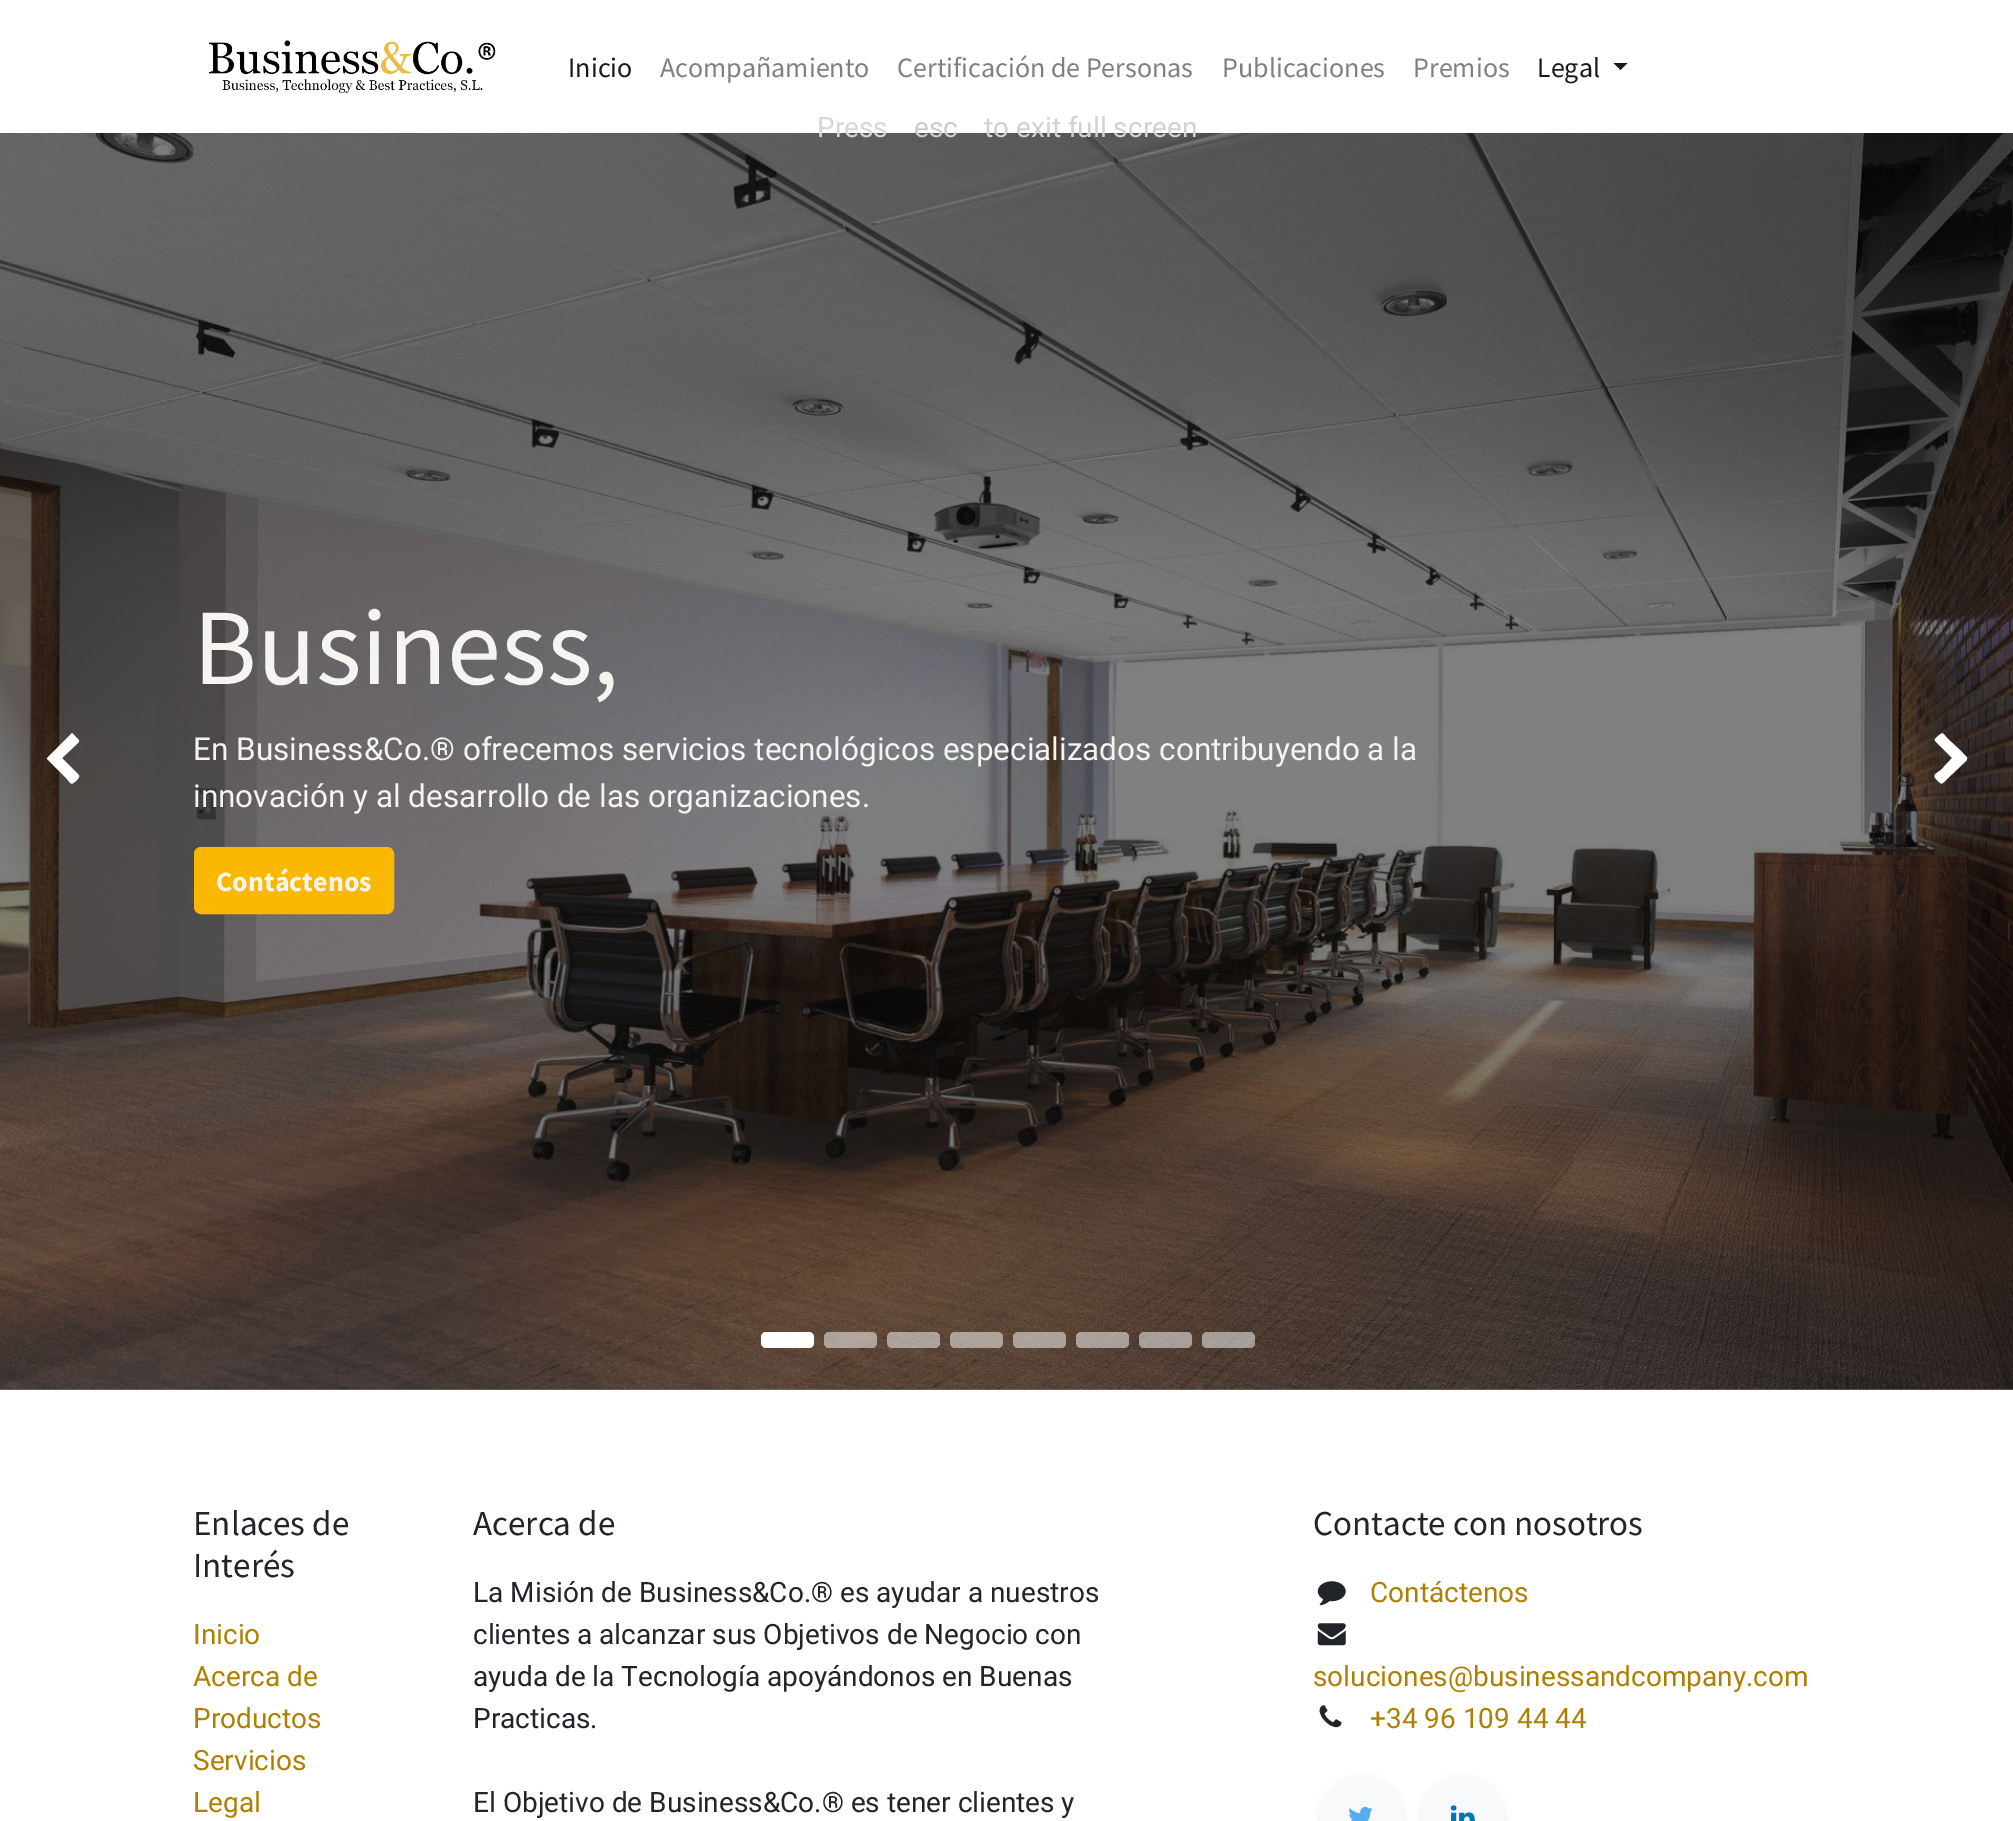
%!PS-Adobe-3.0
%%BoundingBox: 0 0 2013 1821
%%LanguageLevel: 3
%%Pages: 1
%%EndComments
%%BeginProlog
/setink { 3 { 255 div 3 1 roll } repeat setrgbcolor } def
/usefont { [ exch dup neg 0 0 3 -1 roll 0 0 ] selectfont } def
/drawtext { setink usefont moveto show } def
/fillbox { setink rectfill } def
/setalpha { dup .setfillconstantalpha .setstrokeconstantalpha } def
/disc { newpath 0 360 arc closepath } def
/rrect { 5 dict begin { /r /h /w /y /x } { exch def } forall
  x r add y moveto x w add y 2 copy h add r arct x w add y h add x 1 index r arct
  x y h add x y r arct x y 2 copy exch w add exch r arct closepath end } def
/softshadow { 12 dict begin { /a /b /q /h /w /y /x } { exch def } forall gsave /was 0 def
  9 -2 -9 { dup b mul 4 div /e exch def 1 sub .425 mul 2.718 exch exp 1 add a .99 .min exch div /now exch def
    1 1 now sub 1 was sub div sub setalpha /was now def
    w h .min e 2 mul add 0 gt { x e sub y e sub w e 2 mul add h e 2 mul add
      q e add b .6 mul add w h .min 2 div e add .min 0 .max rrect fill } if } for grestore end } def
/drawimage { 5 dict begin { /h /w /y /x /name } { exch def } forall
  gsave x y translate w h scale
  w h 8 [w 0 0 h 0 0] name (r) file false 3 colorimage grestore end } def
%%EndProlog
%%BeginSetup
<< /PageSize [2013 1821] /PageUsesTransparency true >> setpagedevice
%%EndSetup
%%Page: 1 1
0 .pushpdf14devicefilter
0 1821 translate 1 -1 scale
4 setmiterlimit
0 0 2013 1821 255 255 255 fillbox
0 1389 2013 1 128 128 128 fillbox
(assets/img1.rgb) 209 40 287 53 drawimage
(Inicio) 568 77 /SourceSansPro-Regular 28 26 26 26 drawtext
(Acompañamiento) 660 77 /SourceSansPro-Regular 28 128 128 128 drawtext
(Certificación de Personas) 897 77 /SourceSansPro-Regular 28 128 128 128 drawtext
(Publicaciones) 1222 77 /SourceSansPro-Regular 28 128 128 128 drawtext
(Premios) 1413 77 /SourceSansPro-Regular 28 128 128 128 drawtext
(Legal) 1537 77 /SourceSansPro-Regular 28 26 26 26 drawtext
1613.5 63 moveto 1627.5 63 lineto 1620.5 70 lineto closepath fill
(assets/img2.rgb) 0 133 2013 1257 drawimage
255 255 255 setink
79 742 moveto 62 758 lineto 76 772 lineto 80 776 80 776 77 780 curveto 71 785 72 785 67 779 curveto 47 759 lineto 47 758 lineto 71 734 lineto 72 732 74 735 75 736 curveto 79 740 lineto 79 740 79 741 79 742 curveto closepath fill
(Business,) 193 684 /SourceSansPro-Regular 108.5 245 244 240 drawtext
(En Business&Co.® ofrecemos servicios tecnológicos especializados contribuyendo a la) 193 760 /Roboto-Regular 31.5 245 244 240 drawtext
(innovación y al desarrollo de las organizaciones.) 193 807 /Roboto-Regular 31.5 245 244 240 drawtext
250 184 3 setink
195 848 198 65 6 rrect gsave fill grestore
2 setlinewidth
stroke
(Contáctenos) 216 891 /SourceSansPro-Bold 28 245 244 240 drawtext
255 255 255 setink
1967 760 moveto 1947 779 lineto 1941 785 1942 785 1936 779 curveto 1932 775 1937 773 1941 770 curveto 1952 758 lineto 1935 741 lineto 1934 739 1936 738 1937 737 curveto 1943 732 1942 732 1947 738 curveto 1963 753 lineto 1963 754 1968 757 1967 759 curveto closepath fill
761 1332 53 16 5 rrect fill
0.5 setalpha
824 1332 53 16 5 rrect fill
887 1332 53 16 5 rrect fill
950 1332 53 16 5 rrect fill
1013 1332 53 16 5 rrect fill
1076 1332 53 16 5 rrect fill
1139 1332 53 16 5 rrect fill
1202 1332 53 16 5 rrect fill
1 setalpha
(Enlaces de) 193 1535 /SourceSansPro-Regular 35 33 37 41 drawtext
(Interés) 193 1577 /SourceSansPro-Regular 35 33 37 41 drawtext
(Inicio) 193 1644 /Roboto-Regular 28 174 128 2 drawtext
(Acerca de) 193 1686 /Roboto-Regular 28 174 128 2 drawtext
(Productos) 193 1728 /Roboto-Regular 28 174 128 2 drawtext
(Servicios) 193 1770 /Roboto-Regular 28 174 128 2 drawtext
(Legal) 193 1812 /Roboto-Regular 28 174 128 2 drawtext
(Acerca de) 473 1535 /SourceSansPro-Regular 35 33 37 41 drawtext
(La Misión de Business&Co.® es ayudar a nuestros) 473 1602 /Roboto-Regular 28 33 37 41 drawtext
(clientes a alcanzar sus Objetivos de Negocio con) 473 1644 /Roboto-Regular 28 33 37 41 drawtext
(ayuda de la Tecnología apoyándonos en Buenas) 473 1686 /Roboto-Regular 28 33 37 41 drawtext
(Practicas.) 473 1728 /Roboto-Regular 28 33 37 41 drawtext
(El Objetivo de Business&Co.® es tener clientes y) 473 1812 /Roboto-Regular 28 33 37 41 drawtext
(Contacte con nosotros) 1313 1535 /SourceSansPro-Regular 35 33 37 41 drawtext
(assets/img3.rgb) 1317 1581 29 25 drawimage
(Contáctenos) 1370 1602 /Roboto-Regular 28 174 128 2 drawtext
(assets/img4.rgb) 1317 1623 29 23 drawimage
(soluciones@businessandcompany.com) 1313 1686 /Roboto-Regular 28 174 128 2 drawtext
(assets/img5.rgb) 1319 1705 23 23 drawimage
(+34 96 109 44 44) 1370 1728 /Roboto-Regular 28 174 128 2 drawtext
0 0 0 setink
1320 1778 84 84 42 3.5 0.07 softshadow
248 249 250 setink
1362 1817 42 disc fill
(assets/img6.rgb) 1349 1807 24 14 drawimage
0 0 0 setink
1421 1778 84 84 42 3.5 0.07 softshadow
248 249 250 setink
1463 1817 42 disc fill
(assets/img7.rgb) 1450 1805 25 16 drawimage
(Press) 817 137 /Roboto-Regular 28 215 215 215 drawtext
(esc) 914 137 /Roboto-Regular 28 203 203 203 drawtext
(to exit full screen) 984 137 /Roboto-Regular 28 209 209 209 drawtext
.poppdf14devicefilter showpage
%%EOF
